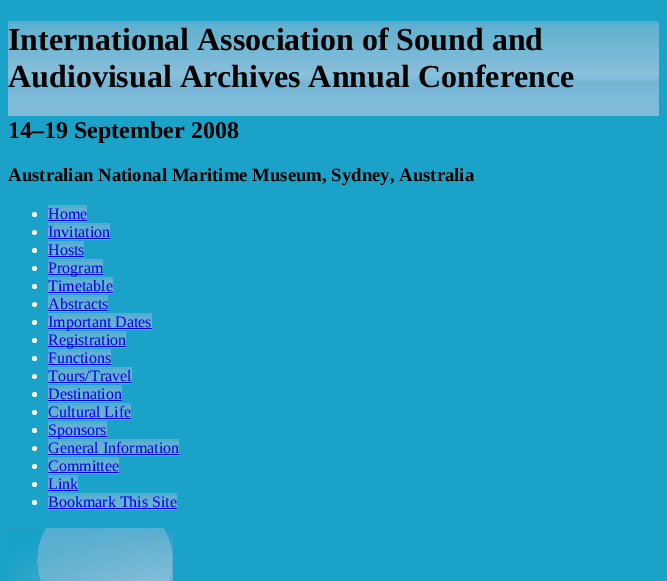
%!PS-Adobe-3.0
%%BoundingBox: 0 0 667 581
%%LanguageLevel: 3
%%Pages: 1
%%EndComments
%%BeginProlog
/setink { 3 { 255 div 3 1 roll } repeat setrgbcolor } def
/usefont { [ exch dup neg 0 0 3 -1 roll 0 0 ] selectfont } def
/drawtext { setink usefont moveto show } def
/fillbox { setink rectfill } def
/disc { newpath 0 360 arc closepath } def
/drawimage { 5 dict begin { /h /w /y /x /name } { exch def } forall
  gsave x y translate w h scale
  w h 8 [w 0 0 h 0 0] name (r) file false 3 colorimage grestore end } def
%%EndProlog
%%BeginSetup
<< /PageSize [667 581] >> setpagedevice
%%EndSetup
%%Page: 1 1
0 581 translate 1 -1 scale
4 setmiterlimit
0 0 667 581 27 162 200 fillbox
(assets/img1.rgb) 8 21 651 95 drawimage
(International Association of Sound and) 8 50 /LiberationSerif-Bold 32 0 0 0 drawtext
(Audiovisual Archives Annual Conference) 8 87 /LiberationSerif-Bold 32 0 0 0 drawtext
(14–19 September 2008) 8 138 /LiberationSerif-Bold 24 0 0 0 drawtext
(Australian National Maritime Museum, Sydney, Australia) 8 181 /LiberationSerif-Bold 18.75 0 0 0 drawtext
(assets/img2.rgb) 8 527 165 54 drawimage
(assets/img3.rgb) 48 205 39 17 drawimage
255 255 255 setink
34.5 214.5 2.5 disc fill
(Home) 48 219 /LiberationSerif-Regular 16 0 0 238 drawtext
48 220 39 1 0 0 238 fillbox
(assets/img4.rgb) 48 223 62 17 drawimage
255 255 255 setink
34.5 232.5 2.5 disc fill
(Invitation) 48 237 /LiberationSerif-Regular 16 0 0 238 drawtext
48 238 62 1 0 0 238 fillbox
(assets/img5.rgb) 48 241 36 17 drawimage
255 255 255 setink
34.5 250.5 2.5 disc fill
(Hosts) 48 255 /LiberationSerif-Regular 16 0 0 238 drawtext
48 256 36 1 0 0 238 fillbox
(assets/img6.rgb) 48 259 55 17 drawimage
255 255 255 setink
34.5 268.5 2.5 disc fill
48 274 55 1 0 0 238 fillbox
(Program) 48 273 /LiberationSerif-Regular 16 0 0 238 drawtext
(assets/img7.rgb) 48 277 65 17 drawimage
255 255 255 setink
34.5 286.5 2.5 disc fill
(Timetable) 48 291 /LiberationSerif-Regular 16 0 0 238 drawtext
48 292 65 1 0 0 238 fillbox
(assets/img8.rgb) 48 295 60 17 drawimage
255 255 255 setink
34.5 304.5 2.5 disc fill
(Abstracts) 48 309 /LiberationSerif-Regular 16 0 0 238 drawtext
48 310 60 1 0 0 238 fillbox
(assets/img9.rgb) 48 313 104 17 drawimage
255 255 255 setink
34.5 322.5 2.5 disc fill
48 328 104 1 0 0 238 fillbox
(Important Dates) 48 327 /LiberationSerif-Regular 16 0 0 238 drawtext
(assets/img10.rgb) 48 331 78 17 drawimage
255 255 255 setink
34.5 340.5 2.5 disc fill
48 346 78 1 0 0 238 fillbox
(Registration) 48 345 /LiberationSerif-Regular 16 0 0 238 drawtext
(assets/img11.rgb) 48 349 63 17 drawimage
255 255 255 setink
34.5 358.5 2.5 disc fill
(Functions) 48 363 /LiberationSerif-Regular 16 0 0 238 drawtext
48 364 63 1 0 0 238 fillbox
(assets/img12.rgb) 48 367 84 17 drawimage
255 255 255 setink
34.5 376.5 2.5 disc fill
(Tours/Travel) 48 381 /LiberationSerif-Regular 16 0 0 238 drawtext
48 382 84 1 0 0 238 fillbox
(assets/img13.rgb) 48 385 74 17 drawimage
255 255 255 setink
34.5 394.5 2.5 disc fill
(Destination) 48 399 /LiberationSerif-Regular 16 0 0 238 drawtext
48 400 74 1 0 0 238 fillbox
(assets/img14.rgb) 48 403 83 17 drawimage
255 255 255 setink
34.5 412.5 2.5 disc fill
(Cultural Life) 48 417 /LiberationSerif-Regular 16 0 0 238 drawtext
48 418 83 1 0 0 238 fillbox
(assets/img15.rgb) 48 421 59 17 drawimage
255 255 255 setink
34.5 430.5 2.5 disc fill
48 436 59 1 0 0 238 fillbox
(Sponsors) 48 435 /LiberationSerif-Regular 16 0 0 238 drawtext
(assets/img16.rgb) 48 439 131 17 drawimage
255 255 255 setink
34.5 448.5 2.5 disc fill
(General Information) 48 453 /LiberationSerif-Regular 16 0 0 238 drawtext
48 454 131 1 0 0 238 fillbox
(assets/img17.rgb) 48 457 71 17 drawimage
255 255 255 setink
34.5 466.5 2.5 disc fill
(Committee) 48 471 /LiberationSerif-Regular 16 0 0 238 drawtext
48 472 71 1 0 0 238 fillbox
(assets/img18.rgb) 48 475 30 17 drawimage
255 255 255 setink
34.5 484.5 2.5 disc fill
(Link) 48 489 /LiberationSerif-Regular 16 0 0 238 drawtext
48 490 30 1 0 0 238 fillbox
(assets/img19.rgb) 48 493 129 17 drawimage
255 255 255 setink
34.5 502.5 2.5 disc fill
(Bookmark This Site) 48 507 /LiberationSerif-Regular 16 0 0 238 drawtext
48 508 129 1 0 0 238 fillbox
showpage
%%EOF
